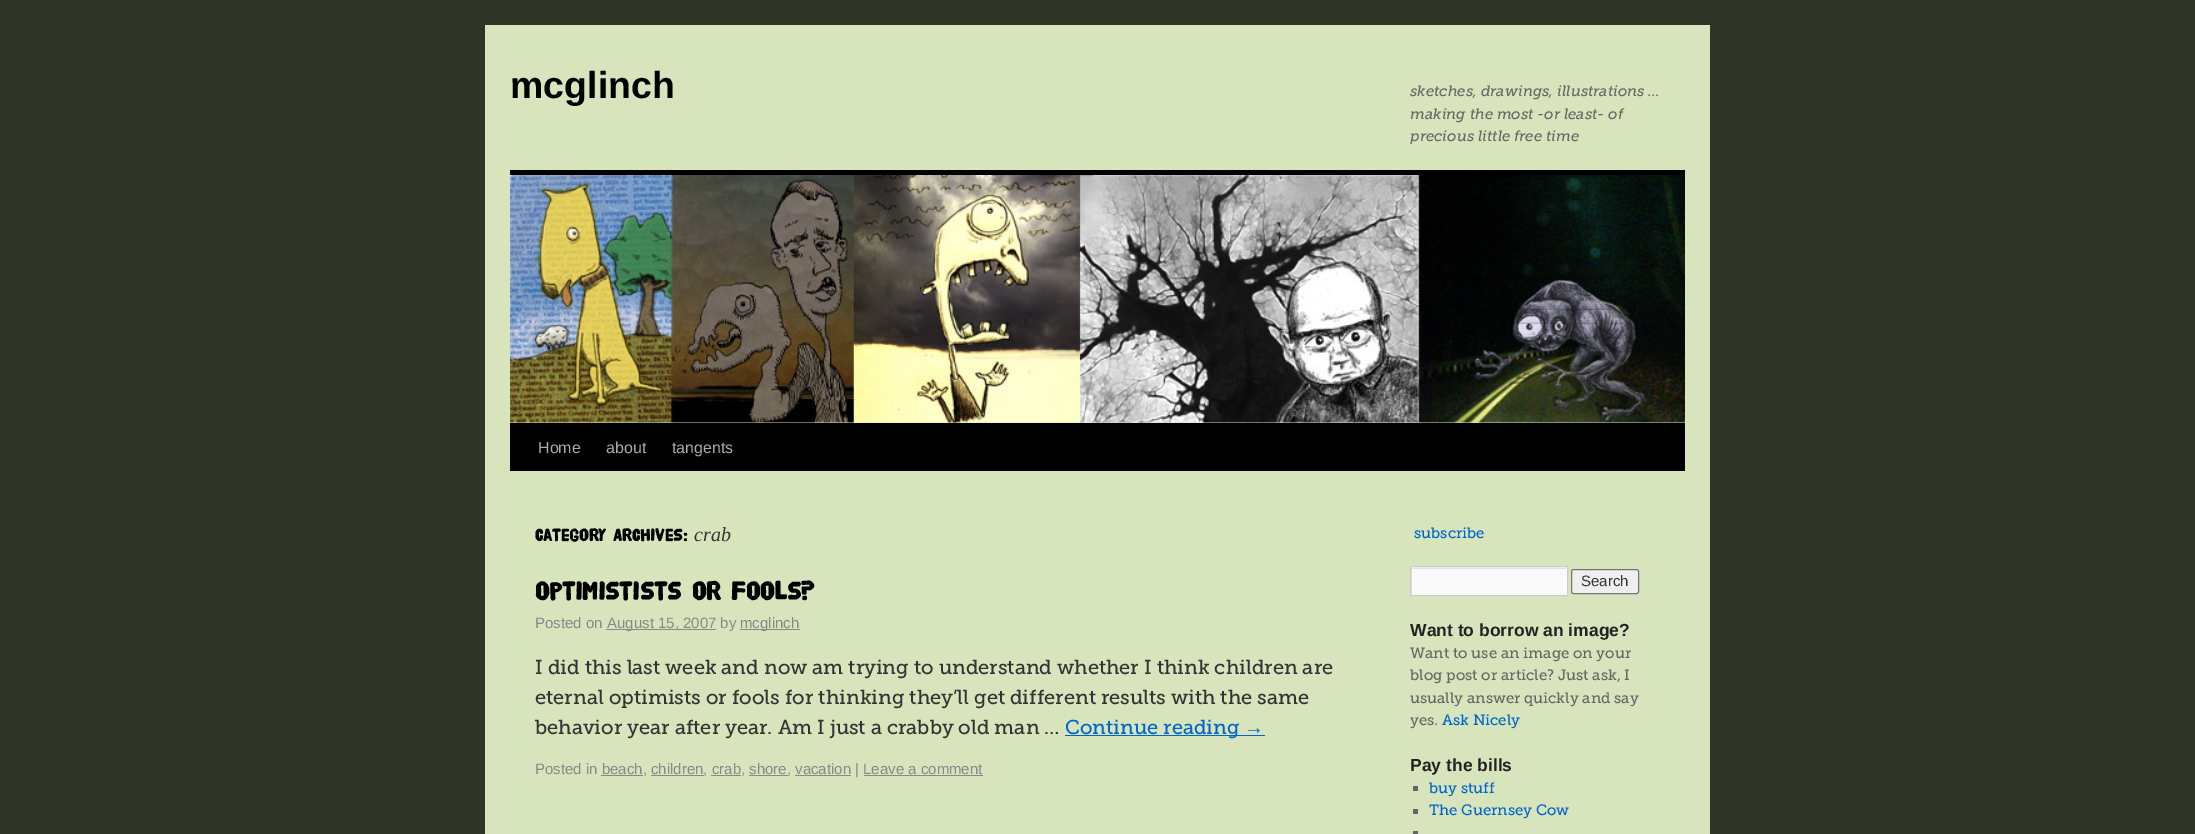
%!PS-Adobe-3.0
%%BoundingBox: 0 0 2195 834
%%LanguageLevel: 3
%%Pages: 1
%%EndComments
%%BeginProlog
/setink { 3 { 255 div 3 1 roll } repeat setrgbcolor } def
/usefont { [ exch dup neg 0 0 3 -1 roll 0 0 ] selectfont } def
/drawtext { setink usefont moveto show } def
/fillbox { setink rectfill } def
/rrect { 5 dict begin { /r /h /w /y /x } { exch def } forall
  x r add y moveto x w add y 2 copy h add r arct x w add y h add x 1 index r arct
  x y h add x y r arct x y 2 copy exch w add exch r arct closepath end } def
/drawimage { 5 dict begin { /h /w /y /x /name } { exch def } forall
  gsave x y translate w h scale
  w h 8 [w 0 0 h 0 0] name (r) file false 3 colorimage grestore end } def
%%EndProlog
%%BeginSetup
<< /PageSize [2195 834] >> setpagedevice
%%EndSetup
%%Page: 1 1
0 834 translate 1 -1 scale
4 setmiterlimit
0 0 2195 834 48 52 39 fillbox
485 25 1225 809 216 229 188 fillbox
(mcglinch) 510 98 /LiberationSans-Bold 37.5 0 0 0 drawtext
(sketches, drawings, illustrations …) 1410 96 /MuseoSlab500-MediumItalic 15 102 102 102 drawtext
(making the most -or least- of) 1410 119 /MuseoSlab500-MediumItalic 15 102 102 102 drawtext
(precious little free time) 1410 141 /MuseoSlab500-MediumItalic 15 102 102 102 drawtext
510 170 1175 5 0 0 0 fillbox
510 423 1175 48 0 0 0 fillbox
(assets/img1.rgb) 510 175 1175 248 drawimage
(Home) 538 453 /LiberationSans-Regular 16 170 170 170 drawtext
(about) 606 453 /LiberationSans-Regular 16 170 170 170 drawtext
(tangents) 672 453 /LiberationSans-Regular 16 170 170 170 drawtext
(Category Archives:) 535 541 /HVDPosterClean-Bold 17.5 0 0 0 drawtext
(crab) 694 541 /LiberationSerif-Italic 20 51 51 51 drawtext
(Optimistists or Fools?) 535 600 /HVDPosterClean-Bold 26.25 0 0 0 drawtext
(Posted on) 535 628 /LiberationSans-Regular 15 136 136 136 drawtext
606 629 110 1 136 136 136 fillbox
(August 15, 2007 by) 607 628 /LiberationSans-Regular 15 136 136 136 drawtext
740 629 60 1 136 136 136 fillbox
(mcglinch) 740 628 /LiberationSans-Regular 15 136 136 136 drawtext
(I did this last week and now am trying to understand whether I think children are) 535 674 /MuseoSlab500-Regular 20 51 51 51 drawtext
(eternal optimists or fools for thinking they’ll get different results with the same) 535 704 /MuseoSlab500-Regular 20 51 51 51 drawtext
(behavior year after year. Am I just a crabby old man …) 535 734 /MuseoSlab500-Regular 20 51 51 51 drawtext
1065 735 200 1 0 102 204 fillbox
(Continue reading) 1065 734 /MuseoSlab500-Regular 20 0 102 204 drawtext
(→) 1244 734 /LiberationSerif-Regular 20 0 102 204 drawtext
(Posted in beach, children, crab, shore, vacation | Leave a comment) 535 774 /LiberationSans-Regular 15 136 136 136 drawtext
601 775 42 1 136 136 136 fillbox
651 775 53 1 136 136 136 fillbox
711 775 30 1 136 136 136 fillbox
749 775 39 1 136 136 136 fillbox
795 775 56 1 136 136 136 fillbox
864 775 119 1 136 136 136 fillbox
(subscribe) 1414 538 /MuseoSlab500-Regular 15 0 102 204 drawtext
1411 567 156 28 249 249 249 fillbox
gsave
1411 568 155 27 rectclip
224 224 224 setink
1288 444 moveto 1690 444 lineto 1690 719 lineto 1288 719 lineto closepath 1412 569 moveto 1568 569 lineto 1568 596 lineto 1412 596 lineto closepath eofill
grestore
204 204 204 setink
1410.5 566.5 157 29 rectstroke
239 239 239 setink
1571.5 569.5 67 24 2 rrect gsave fill grestore
118 118 118 setink
stroke
(Search) 1581 586 /LiberationSans-Regular 15 51 51 51 drawtext
(Want to borrow an image?) 1410 636 /LiberationSans-Bold 17.5 34 34 34 drawtext
(Want to use an image on your) 1410 658 /MuseoSlab500-Regular 15 102 102 102 drawtext
(blog post or article? Just ask, I) 1410 680 /MuseoSlab500-Regular 15 102 102 102 drawtext
(usually answer quickly and say) 1410 703 /MuseoSlab500-Regular 15 102 102 102 drawtext
(yes.) 1410 725 /MuseoSlab500-Regular 15 102 102 102 drawtext
(Ask Nicely) 1442 725 /MuseoSlab500-Regular 15 0 102 204 drawtext
(Pay the bills) 1410 771 /LiberationSans-Bold 17.5 34 34 34 drawtext
1413 786 5 5 102 102 102 fillbox
(buy stuff) 1429 793 /MuseoSlab500-Regular 15 0 102 204 drawtext
1413 809 5 5 102 102 102 fillbox
(The Guernsey Cow) 1429 815 /MuseoSlab500-Regular 15 0 102 204 drawtext
1413 831 5 3 102 102 102 fillbox
showpage
%%EOF
